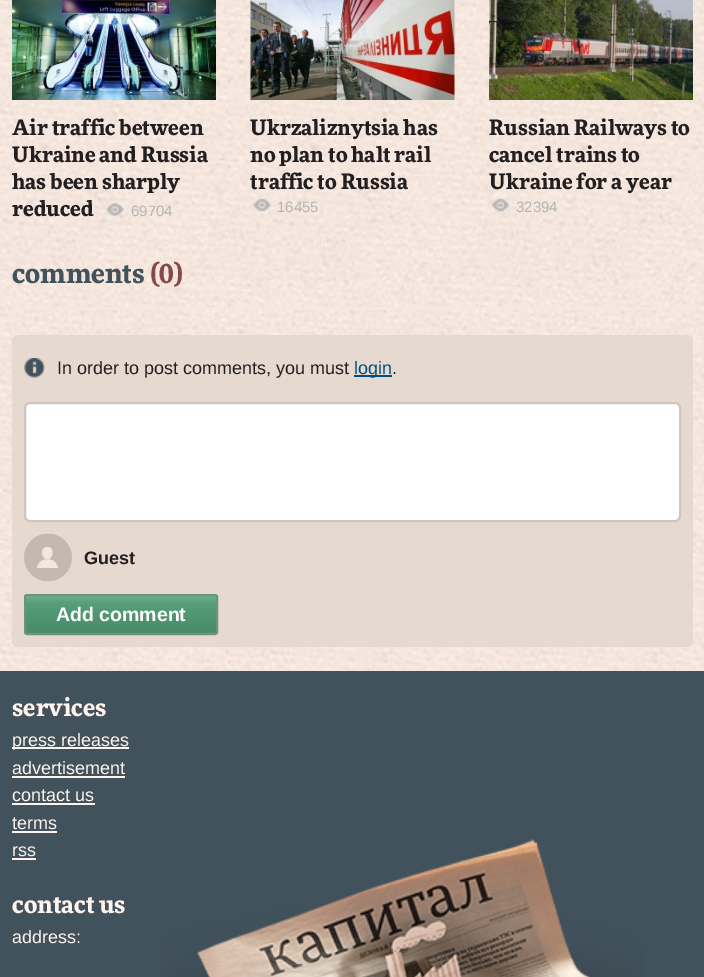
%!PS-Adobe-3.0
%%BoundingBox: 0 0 704 977
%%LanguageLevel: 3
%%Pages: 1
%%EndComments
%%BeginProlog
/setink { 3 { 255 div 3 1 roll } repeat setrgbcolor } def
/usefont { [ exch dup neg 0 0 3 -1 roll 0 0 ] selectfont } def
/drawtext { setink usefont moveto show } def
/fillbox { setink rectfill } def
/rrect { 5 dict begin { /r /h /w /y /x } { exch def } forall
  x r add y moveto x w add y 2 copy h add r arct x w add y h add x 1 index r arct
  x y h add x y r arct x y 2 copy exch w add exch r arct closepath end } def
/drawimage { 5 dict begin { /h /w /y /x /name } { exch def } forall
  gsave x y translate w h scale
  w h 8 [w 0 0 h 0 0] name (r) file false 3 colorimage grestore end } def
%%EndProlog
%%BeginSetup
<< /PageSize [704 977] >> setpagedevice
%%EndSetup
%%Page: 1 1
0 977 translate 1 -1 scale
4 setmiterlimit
0 0 704 977 255 255 255 fillbox
(assets/img1.rgb) 0 0 704 670 drawimage
(assets/img2.rgb) 12 0 204 100 drawimage
(Air traffic between) 12 135 /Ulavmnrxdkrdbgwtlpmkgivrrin-Bold 21 35 31 32 drawtext
(Ukraine and Russia) 12 162 /Ulavmnrxdkrdbgwtlpmkgivrrin-Bold 21 35 31 32 drawtext
(has been sharply) 12 189 /Ulavmnrxdkrdbgwtlpmkgivrrin-Bold 21 35 31 32 drawtext
(reduced) 12 216 /Ulavmnrxdkrdbgwtlpmkgivrrin-Bold 21 35 31 32 drawtext
(assets/img3.rgb) 106 202 18 14 drawimage
(69704) 131 216 /LiberationSans-Regular 15 181 181 181 drawtext
(assets/img4.rgb) 250 0 205 100 drawimage
(Ukrzaliznytsia has) 250 135 /Ulavmnrxdkrdbgwtlpmkgivrrin-Bold 21 35 31 32 drawtext
(no plan to halt rail) 250 162 /Ulavmnrxdkrdbgwtlpmkgivrrin-Bold 21 35 31 32 drawtext
(traffic to Russia) 250 189 /Ulavmnrxdkrdbgwtlpmkgivrrin-Bold 21 35 31 32 drawtext
(assets/img5.rgb) 253 198 18 14 drawimage
(16455) 277 212 /LiberationSans-Regular 15 181 181 181 drawtext
(assets/img6.rgb) 489 0 204 100 drawimage
(Russian Railways to) 489 135 /Ulavmnrxdkrdbgwtlpmkgivrrin-Bold 21 35 31 32 drawtext
(cancel trains to) 489 162 /Ulavmnrxdkrdbgwtlpmkgivrrin-Bold 21 35 31 32 drawtext
(Ukraine for a year) 489 189 /Ulavmnrxdkrdbgwtlpmkgivrrin-Bold 21 35 31 32 drawtext
(assets/img7.rgb) 492 198 18 14 drawimage
(32394) 516 212 /LiberationSans-Regular 15 181 181 181 drawtext
12 307 681 3 239 234 231 fillbox
(comments) 12 283 /Ulavmnrxdkrdbgwtlpmkgivrrin-Bold 27 65 82 92 drawtext
(\(0\)) 150 283 /Ulavmnrxdkrdbgwtlpmkgivrrin-Bold 27 135 72 74 drawtext
230 217 208 setink
12 335 681 312 6 rrect fill
(assets/img8.rgb) 24 358 21 20 drawimage
(In order to post comments, you must) 57 374 /LiberationSans-Regular 18 35 31 32 drawtext
354 375 38 2 0 80 127 fillbox
(login) 354 374 /LiberationSans-Regular 18 0 80 127 drawtext
(.) 392 374 /LiberationSans-Regular 18 35 31 32 drawtext
255 255 255 setink
25 403 655 118 5 rrect gsave fill grestore
209 197 189 setink
2 setlinewidth
stroke
(assets/img9.rgb) 24 533 48 49 drawimage
(Guest) 84 564 /LiberationSans-Bold 18 35 31 32 drawtext
(assets/img10.rgb) 24 595 194 39 drawimage
107 149 121 setink
25 595 192 39 2 rrect stroke
(Add comment) 56 621 /LiberationSans-Bold 19.5 255 255 255 drawtext
0 670 704 1 239 234 231 fillbox
0 671 704 306 65 82 92 fillbox
(assets/img11.rgb) 160 839 484 138 drawimage
(services) 12 716 /Ulavmnrxdkrdbgwtlpmkgivrrin-Bold 24 254 244 237 drawtext
12 747 117 2 254 244 237 fillbox
(press releases) 12 746 /LiberationSans-Regular 18 254 244 237 drawtext
(advertisement) 12 774 /LiberationSans-Regular 18 254 244 237 drawtext
12 776 113 2 254 244 237 fillbox
(contact us) 12 801 /LiberationSans-Regular 18 254 244 237 drawtext
12 803 83 2 254 244 237 fillbox
(terms) 12 829 /LiberationSans-Regular 18 254 244 237 drawtext
12 831 45 2 254 244 237 fillbox
(rss) 12 856 /LiberationSans-Regular 18 254 244 237 drawtext
12 858 24 2 254 244 237 fillbox
(contact us) 12 913 /Ulavmnrxdkrdbgwtlpmkgivrrin-Bold 24 254 244 237 drawtext
(address:) 12 943 /LiberationSans-Regular 18 254 244 237 drawtext
showpage
%%EOF
